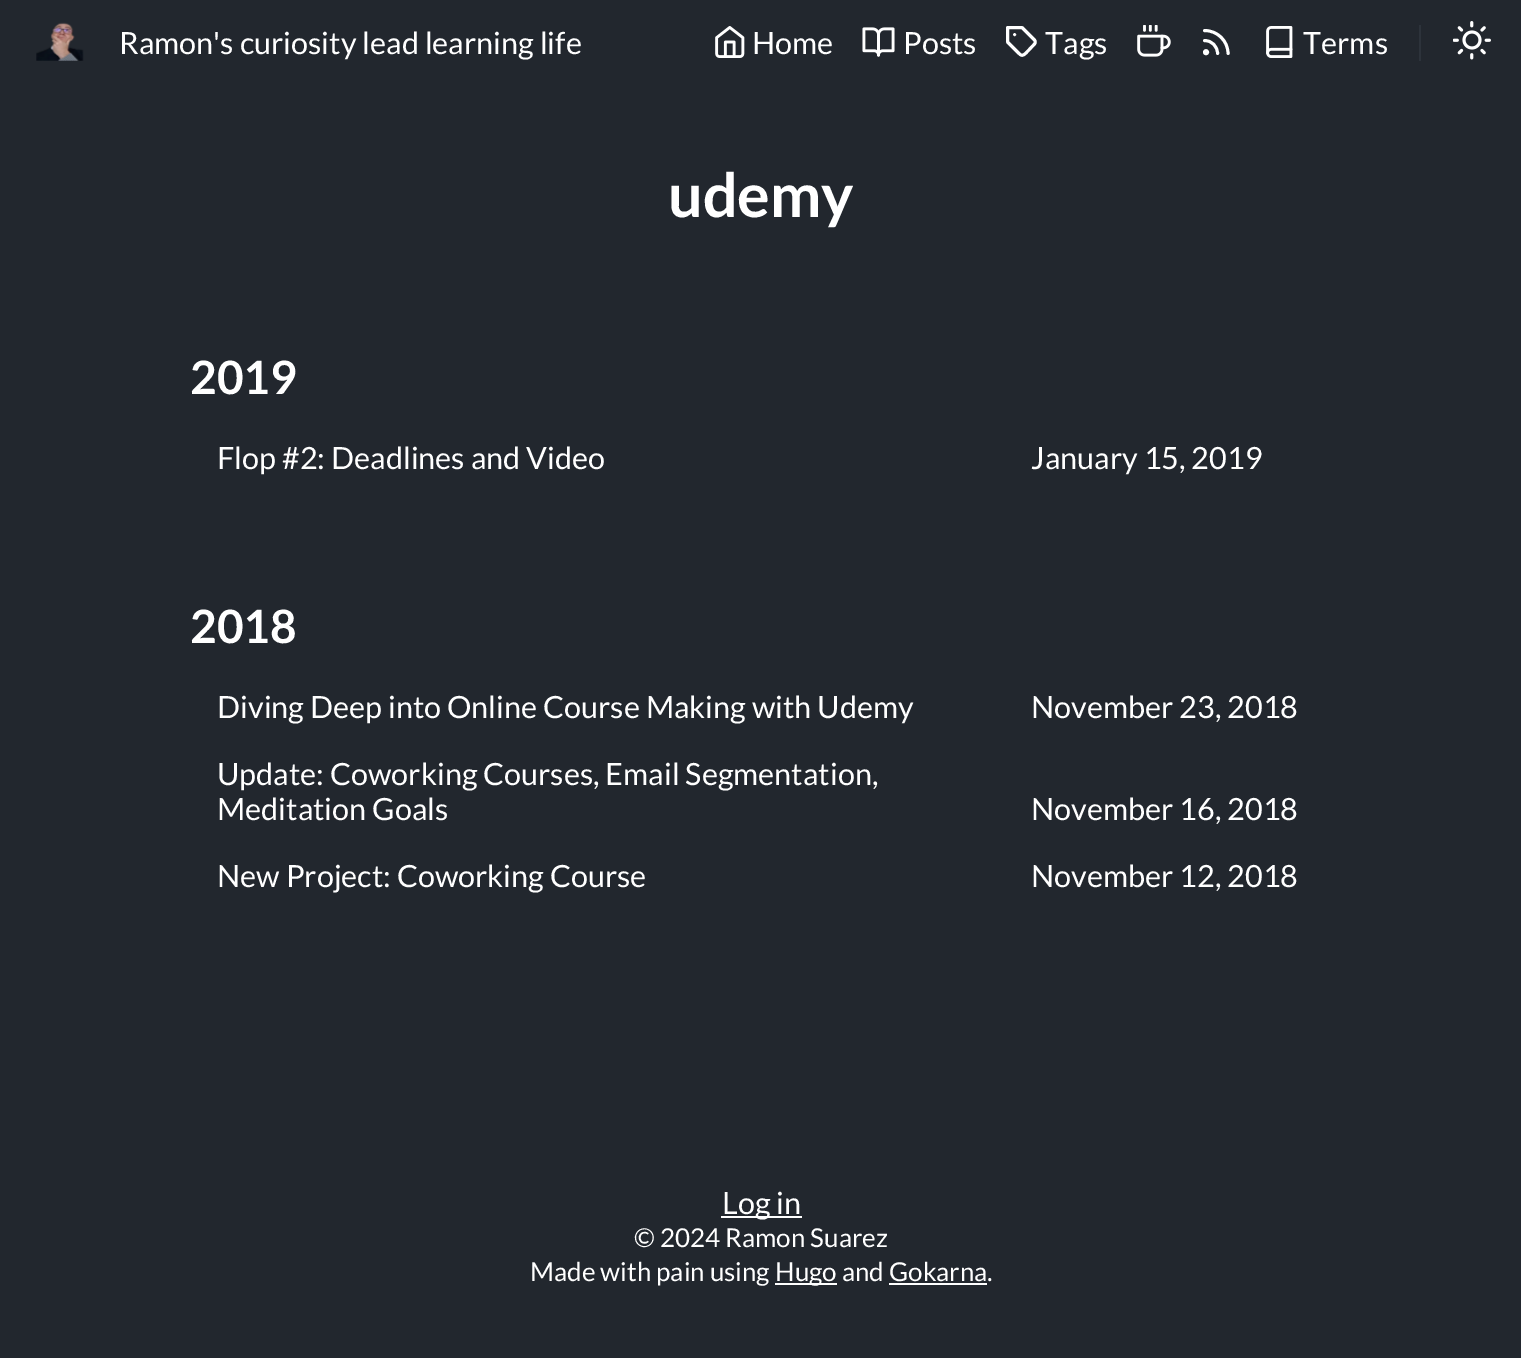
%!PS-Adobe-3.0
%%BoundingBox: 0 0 1521 1358
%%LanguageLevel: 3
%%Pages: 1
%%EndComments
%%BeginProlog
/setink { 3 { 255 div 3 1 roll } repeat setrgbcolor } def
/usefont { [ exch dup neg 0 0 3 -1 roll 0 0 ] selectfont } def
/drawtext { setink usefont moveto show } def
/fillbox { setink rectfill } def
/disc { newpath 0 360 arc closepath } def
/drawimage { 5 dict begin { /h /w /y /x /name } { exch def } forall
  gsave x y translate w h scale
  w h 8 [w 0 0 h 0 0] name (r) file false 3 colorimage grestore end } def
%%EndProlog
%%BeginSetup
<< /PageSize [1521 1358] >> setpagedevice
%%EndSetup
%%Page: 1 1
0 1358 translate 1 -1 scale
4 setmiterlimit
0 0 1521 1358 34 39 46 fillbox
(assets/img1.rgb) 36 22 48 39 drawimage
(Ramon's curiosity lead learning life) 119 54 /Lato-Regular 30.6 255 255 255 drawtext
(assets/img2.rgb) 715 26 30 32 drawimage
(Home) 752 54 /Lato-Regular 30.6 255 255 255 drawtext
(assets/img3.rgb) 862 27 33 30 drawimage
(Posts) 903 54 /Lato-Regular 30.6 255 255 255 drawtext
2.9 setlinewidth
1 setlinecap
1 setlinejoin
1034.5 44 moveto 1026 53 lineto 1022 56.5 1021.5 56 1018 52.5 curveto 1007.5 42 lineto 1007.5 27.5 lineto 1022 27.5 lineto 1034.5 40 lineto 1035.5 41 1035.5 43 1034.5 44 curveto closepath 1014.5 34.5 moveto 1014.5 34.5 lineto stroke
(Tags) 1045 54 /Lato-Regular 30.6 255 255 255 drawtext
(assets/img4.rgb) 1137 25 34 32 drawimage
1204.5 40.5 moveto 1212 40.5 1217.5 46.5 1217.5 53.5 curveto 1204.5 30.5 moveto 1217.5 30.5 1228 41 1228 53.5 curveto stroke
0 setlinecap
0 setlinejoin
1206 52.2 1.5 disc stroke
(assets/img5.rgb) 1266 26 27 32 drawimage
(Terms) 1303 54 /Lato-Regular 30.6 255 255 255 drawtext
1419 25 2 36 45 51 59 fillbox
(assets/img6.rgb) 1453 21 38 39 drawimage
(udemy) 668 217 /Lato-Bold 61 255 255 255 drawtext
(2019) 190 394 /Lato-Bold 46 255 255 255 drawtext
(Flop #2: Deadlines and Video) 217 469 /Lato-Regular 30.6 255 255 255 drawtext
(January 15, 2019) 1031 469 /Lato-Regular 30.6 255 255 255 drawtext
(2018) 190 643 /Lato-Bold 46 255 255 255 drawtext
(Diving Deep into Online Course Making with Udemy) 217 718 /Lato-Regular 30.6 255 255 255 drawtext
(November 23, 2018) 1031 718 /Lato-Regular 30.6 255 255 255 drawtext
(Update: Coworking Courses, Email Segmentation,) 217 785 /Lato-Regular 30.6 255 255 255 drawtext
(Meditation Goals) 217 820 /Lato-Regular 30.6 255 255 255 drawtext
(November 16, 2018) 1031 820 /Lato-Regular 30.6 255 255 255 drawtext
(New Project: Coworking Course) 217 887 /Lato-Regular 30.6 255 255 255 drawtext
(November 12, 2018) 1031 887 /Lato-Regular 30.6 255 255 255 drawtext
721 1216 81 2 255 255 255 fillbox
(Log in) 722 1214 /Lato-Regular 30.6 255 255 255 drawtext
(© 2024 Ramon Suarez) 634 1247 /Lato-Regular 26 255 255 255 drawtext
(Made with pain using) 530 1281 /Lato-Regular 26 255 255 255 drawtext
775 1283 62 2 255 255 255 fillbox
(Hugo and Gokarna.) 775 1281 /Lato-Regular 26 255 255 255 drawtext
889 1283 98 2 255 255 255 fillbox
showpage
%%EOF
